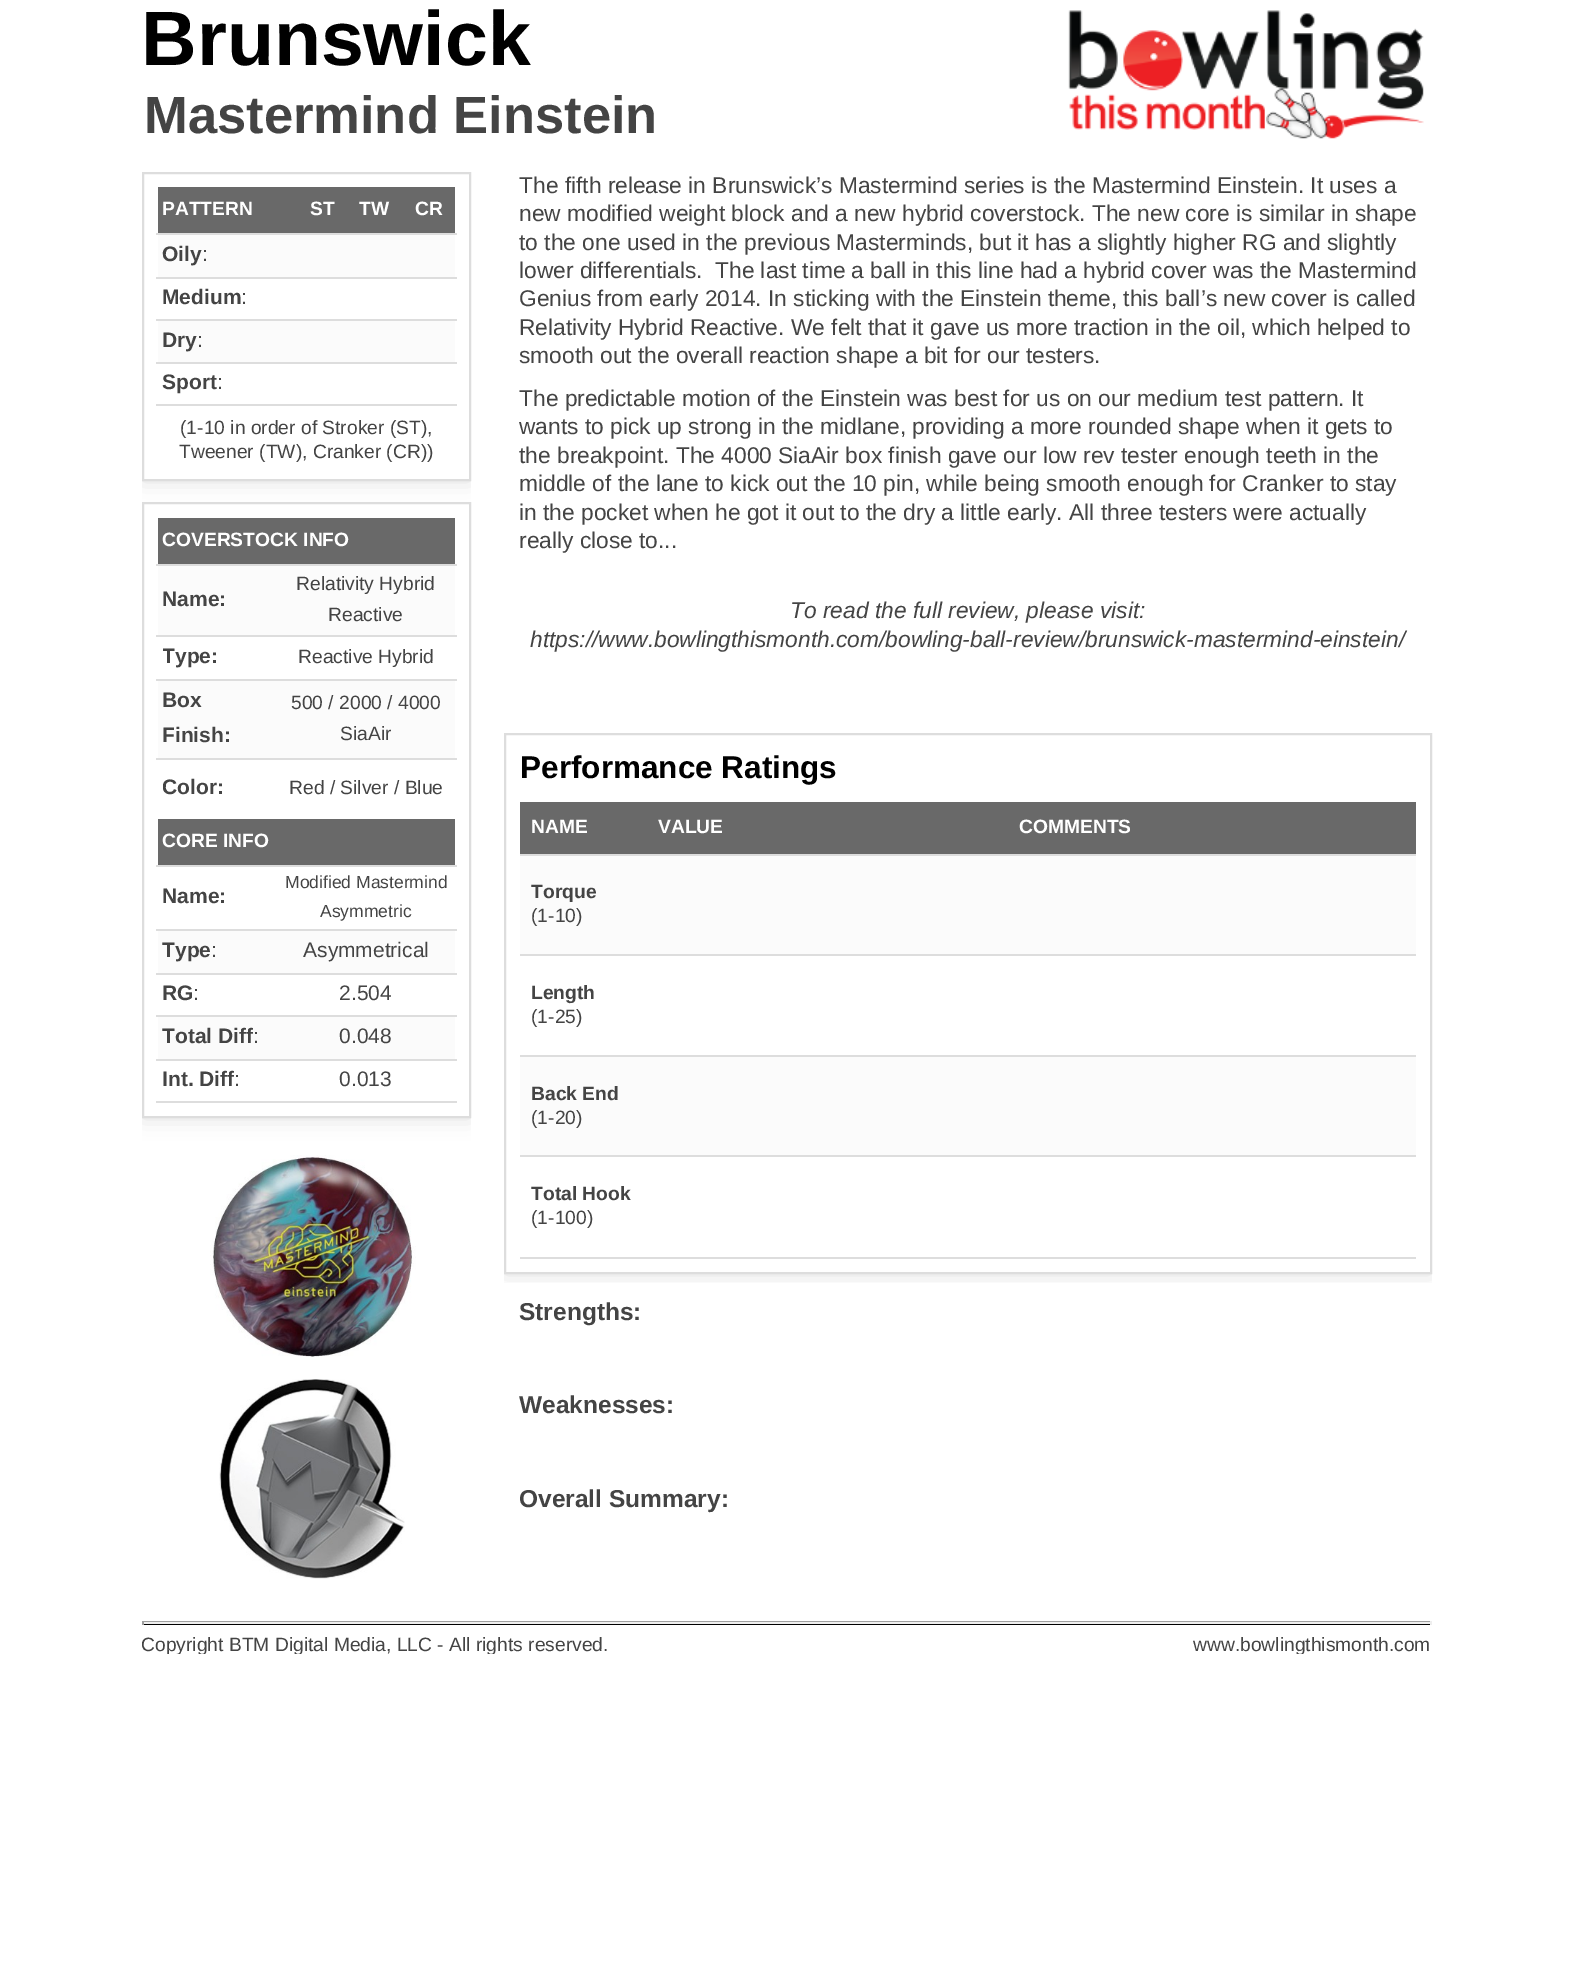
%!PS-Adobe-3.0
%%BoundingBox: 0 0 1570 1971
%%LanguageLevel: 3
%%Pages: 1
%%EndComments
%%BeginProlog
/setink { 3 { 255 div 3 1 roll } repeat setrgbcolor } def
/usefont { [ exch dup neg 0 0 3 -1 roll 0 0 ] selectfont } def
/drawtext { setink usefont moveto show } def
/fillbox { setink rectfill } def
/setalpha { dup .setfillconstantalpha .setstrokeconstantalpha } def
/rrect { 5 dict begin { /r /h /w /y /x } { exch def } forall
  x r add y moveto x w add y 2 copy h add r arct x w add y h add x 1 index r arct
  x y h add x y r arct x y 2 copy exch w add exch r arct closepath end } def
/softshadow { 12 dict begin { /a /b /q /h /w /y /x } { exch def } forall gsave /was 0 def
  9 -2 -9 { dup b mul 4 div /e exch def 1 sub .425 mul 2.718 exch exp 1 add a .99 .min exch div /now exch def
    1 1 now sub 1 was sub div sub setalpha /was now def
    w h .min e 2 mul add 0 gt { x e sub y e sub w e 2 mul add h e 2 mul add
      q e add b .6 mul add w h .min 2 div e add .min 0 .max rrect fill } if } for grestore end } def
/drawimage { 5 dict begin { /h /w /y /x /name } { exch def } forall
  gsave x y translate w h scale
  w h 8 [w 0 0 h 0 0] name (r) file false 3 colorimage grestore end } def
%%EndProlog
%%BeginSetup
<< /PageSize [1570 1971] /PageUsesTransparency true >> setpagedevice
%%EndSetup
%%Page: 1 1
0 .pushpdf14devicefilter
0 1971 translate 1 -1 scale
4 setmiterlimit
0 0 1570 1971 255 255 255 fillbox
(Brunswick) 141 65 /LiberationSans-Bold 77 0 0 0 drawtext
(Mastermind Einstein) 144 133 /LiberationSans-Bold 52.5 68 68 68 drawtext
(assets/img1.rgb) 1068 10 356 129 drawimage
gsave
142 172 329 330 rectclip
221 221 221 setink
142 172 329 309 0 10.5 1 softshadow
grestore
255 255 255 setink
143 173 moveto 470 173 lineto 470 480 lineto 143 480 lineto closepath gsave fill grestore
221 221 221 setink
2 setlinewidth
stroke
156 404 301 2 221 221 221 fillbox
158 187 297 46 105 105 105 fillbox
(PATTERN) 162 215 /LiberationSans-Bold 19.25 255 255 255 drawtext
(ST) 310 215 /LiberationSans-Bold 19.25 255 255 255 drawtext
(TW) 359 215 /LiberationSans-Bold 19.25 255 255 255 drawtext
(CR) 415 215 /LiberationSans-Bold 19.25 255 255 255 drawtext
158 235 297 42 251 251 251 fillbox
156 233 301 2 221 221 221 fillbox
(Oily) 162 261 /LiberationSans-Bold 21 68 68 68 drawtext
(:) 202 261 /LiberationSans-Regular 21 68 68 68 drawtext
156 277 301 2 221 221 221 fillbox
(Medium) 162 304 /LiberationSans-Bold 21 68 68 68 drawtext
(:) 241 304 /LiberationSans-Regular 21 68 68 68 drawtext
158 321 297 41 251 251 251 fillbox
156 319 301 2 221 221 221 fillbox
(Dry) 162 347 /LiberationSans-Bold 21 68 68 68 drawtext
(:) 197 347 /LiberationSans-Regular 21 68 68 68 drawtext
156 362 301 2 221 221 221 fillbox
(Sport) 162 389 /LiberationSans-Bold 21 68 68 68 drawtext
(:) 217 389 /LiberationSans-Regular 21 68 68 68 drawtext
(\(1-10 in order of Stroker \(ST\),) 180 434 /LiberationSans-Regular 19.25 68 68 68 drawtext
(Tweener \(TW\), Cranker \(CR\)\)) 179 458 /LiberationSans-Regular 19.25 68 68 68 drawtext
gsave
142 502 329 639 rectclip
221 221 221 setink
142 502 329 616 0 10.5 1 softshadow
grestore
255 255 255 setink
143 503 moveto 470 503 lineto 470 1117 lineto 143 1117 lineto closepath gsave fill grestore
221 221 221 setink
stroke
156 1101 301 2 221 221 221 fillbox
158 518 297 46 105 105 105 fillbox
(COVERSTOCK INFO) 162 546 /LiberationSans-Bold 19.25 255 255 255 drawtext
158 566 297 69 251 251 251 fillbox
(Name:) 162 606 /LiberationSans-Bold 21 68 68 68 drawtext
156 564 301 2 221 221 221 fillbox
(Relativity Hybrid) 296 590 /LiberationSans-Regular 19.25 68 68 68 drawtext
(Reactive) 328 621 /LiberationSans-Regular 19.25 68 68 68 drawtext
gsave
163 641 56 35 rectclip
(Type:) 162 663 /LiberationSans-Bold 21 68 68 68 drawtext
grestore
156 635 301 2 221 221 221 fillbox
(Reactive Hybrid) 298 663 /LiberationSans-Regular 19.25 68 68 68 drawtext
158 681 297 77 251 251 251 fillbox
(Box) 162 707 /LiberationSans-Bold 21 68 68 68 drawtext
(Finish:) 162 742 /LiberationSans-Bold 21 68 68 68 drawtext
156 679 301 2 221 221 221 fillbox
(500 / 2000 / 4000) 291 709 /LiberationSans-Regular 19.25 68 68 68 drawtext
(SiaAir) 340 740 /LiberationSans-Regular 19.25 68 68 68 drawtext
gsave
163 763 61 53 rectclip
(Color:) 162 794 /LiberationSans-Bold 21 68 68 68 drawtext
grestore
156 758 301 2 221 221 221 fillbox
(Red / Silver / Blue) 289 794 /LiberationSans-Regular 19.25 68 68 68 drawtext
158 819 297 46 105 105 105 fillbox
(CORE INFO) 162 847 /LiberationSans-Bold 19.25 255 255 255 drawtext
(Name:) 162 903 /LiberationSans-Bold 21 68 68 68 drawtext
156 865 301 2 221 221 221 fillbox
(Modified Mastermind) 285 888 /LiberationSans-Regular 17.5 68 68 68 drawtext
(Asymmetric) 320 917 /LiberationSans-Regular 17.5 68 68 68 drawtext
158 931 297 42 251 251 251 fillbox
(Type) 162 957 /LiberationSans-Bold 21 68 68 68 drawtext
(:) 211 957 /LiberationSans-Regular 21 68 68 68 drawtext
156 929 301 2 221 221 221 fillbox
(Asymmetrical) 303 957 /LiberationSans-Regular 21 68 68 68 drawtext
(RG) 162 1000 /LiberationSans-Bold 21 68 68 68 drawtext
(:) 193 1000 /LiberationSans-Regular 21 68 68 68 drawtext
156 973 301 2 221 221 221 fillbox
(2.504) 339 1000 /LiberationSans-Regular 21 68 68 68 drawtext
158 1017 297 42 251 251 251 fillbox
(Total Diff) 162 1043 /LiberationSans-Bold 21 68 68 68 drawtext
(:) 253 1043 /LiberationSans-Regular 21 68 68 68 drawtext
156 1015 301 2 221 221 221 fillbox
(0.048) 339 1043 /LiberationSans-Regular 21 68 68 68 drawtext
(Int. Diff) 162 1086 /LiberationSans-Bold 21 68 68 68 drawtext
(:) 234 1086 /LiberationSans-Regular 21 68 68 68 drawtext
156 1059 301 2 221 221 221 fillbox
(0.013) 339 1086 /LiberationSans-Regular 21 68 68 68 drawtext
(assets/img2.rgb) 210 1155 206 202 drawimage
(assets/img3.rgb) 219 1379 186 200 drawimage
(The fifth release in Brunswick’s Mastermind series is the Mastermind Einstein. It uses a) 519 193 /LiberationSans-Regular 22.75 68 68 68 drawtext
(new modified weight block and a new hybrid coverstock. The new core is similar in shape) 519 221 /LiberationSans-Regular 22.75 68 68 68 drawtext
(to the one used in the previous Masterminds, but it has a slightly higher RG and slightly) 519 250 /LiberationSans-Regular 22.75 68 68 68 drawtext
(lower differentials.  The last time a ball in this line had a hybrid cover was the Mastermind) 519 278 /LiberationSans-Regular 22.75 68 68 68 drawtext
(Genius from early 2014. In sticking with the Einstein theme, this ball’s new cover is called) 519 306 /LiberationSans-Regular 22.75 68 68 68 drawtext
(Relativity Hybrid Reactive. We felt that it gave us more traction in the oil, which helped to) 519 335 /LiberationSans-Regular 22.75 68 68 68 drawtext
(smooth out the overall reaction shape a bit for our testers.) 519 363 /LiberationSans-Regular 22.75 68 68 68 drawtext
(The predictable motion of the Einstein was best for us on our medium test pattern. It) 519 406 /LiberationSans-Regular 22.75 68 68 68 drawtext
(wants to pick up strong in the midlane, providing a more rounded shape when it gets to) 519 434 /LiberationSans-Regular 22.75 68 68 68 drawtext
(the breakpoint. The 4000 SiaAir box finish gave our low rev tester enough teeth in the) 519 463 /LiberationSans-Regular 22.75 68 68 68 drawtext
(middle of the lane to kick out the 10 pin, while being smooth enough for Cranker to stay) 519 491 /LiberationSans-Regular 22.75 68 68 68 drawtext
(in the pocket when he got it out to the dry a little early. All three testers were actually) 519 520 /LiberationSans-Regular 22.75 68 68 68 drawtext
(really close to...) 519 548 /LiberationSans-Regular 22.75 68 68 68 drawtext
(To read the full review, please visit:) 790 618 /LiberationSans-Italic 22.75 68 68 68 drawtext
(https://www.bowlingthismonth.com/bowling-ball-review/brunswick-mastermind-einstein/) 530 647 /LiberationSans-Italic 22.75 68 68 68 drawtext
gsave
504 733 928 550 rectclip
221 221 221 setink
504 733 928 541 0 10.5 1 softshadow
grestore
255 255 255 setink
505 734 moveto 1431 734 lineto 1431 1273 lineto 505 1273 lineto closepath gsave fill grestore
221 221 221 setink
stroke
(Performance Ratings) 520 778 /LiberationSans-Bold 31.5 0 0 0 drawtext
520 1257 896 2 221 221 221 fillbox
520 802 896 52 105 105 105 fillbox
(NAME) 531 833 /LiberationSans-Bold 19.25 255 255 255 drawtext
(VALUE) 658 833 /LiberationSans-Bold 19.25 255 255 255 drawtext
(COMMENTS) 1019 833 /LiberationSans-Bold 19.25 255 255 255 drawtext
520 856 896 98 251 251 251 fillbox
520 854 896 2 221 221 221 fillbox
(Torque) 531 898 /LiberationSans-Bold 19.25 68 68 68 drawtext
(\(1-10\)) 531 922 /LiberationSans-Regular 19.25 68 68 68 drawtext
520 954 896 2 221 221 221 fillbox
(Length) 531 999 /LiberationSans-Bold 19.25 68 68 68 drawtext
(\(1-25\)) 531 1023 /LiberationSans-Regular 19.25 68 68 68 drawtext
520 1057 896 98 251 251 251 fillbox
520 1055 896 2 221 221 221 fillbox
(Back End) 531 1100 /LiberationSans-Bold 19.25 68 68 68 drawtext
(\(1-20\)) 531 1124 /LiberationSans-Regular 19.25 68 68 68 drawtext
520 1155 896 2 221 221 221 fillbox
(Total Hook) 531 1200 /LiberationSans-Bold 19.25 68 68 68 drawtext
(\(1-100\)) 531 1224 /LiberationSans-Regular 19.25 68 68 68 drawtext
(Strengths:) 519 1320 /LiberationSans-Bold 24.5 68 68 68 drawtext
(Weaknesses:) 519 1413 /LiberationSans-Bold 24.5 68 68 68 drawtext
(Overall Summary:) 519 1507 /LiberationSans-Bold 24.5 68 68 68 drawtext
142 1624 1290 1 0 0 0 fillbox
142 1621 1290 1 159 159 159 fillbox
1430 1621 2 4 238 238 238 fillbox
142 1622 1290 2 238 238 238 fillbox
142 1621 2 4 159 159 159 fillbox
gsave
142 1635 644 19 rectclip
(Copyright BTM Digital Media, LLC - All rights reserved.) 141 1651 /LiberationSans-Regular 19.25 68 68 68 drawtext
grestore
gsave
786 1635 646 19 rectclip
(www.bowlingthismonth.com) 1193 1651 /LiberationSans-Regular 19.25 68 68 68 drawtext
grestore
.poppdf14devicefilter showpage
%%EOF
